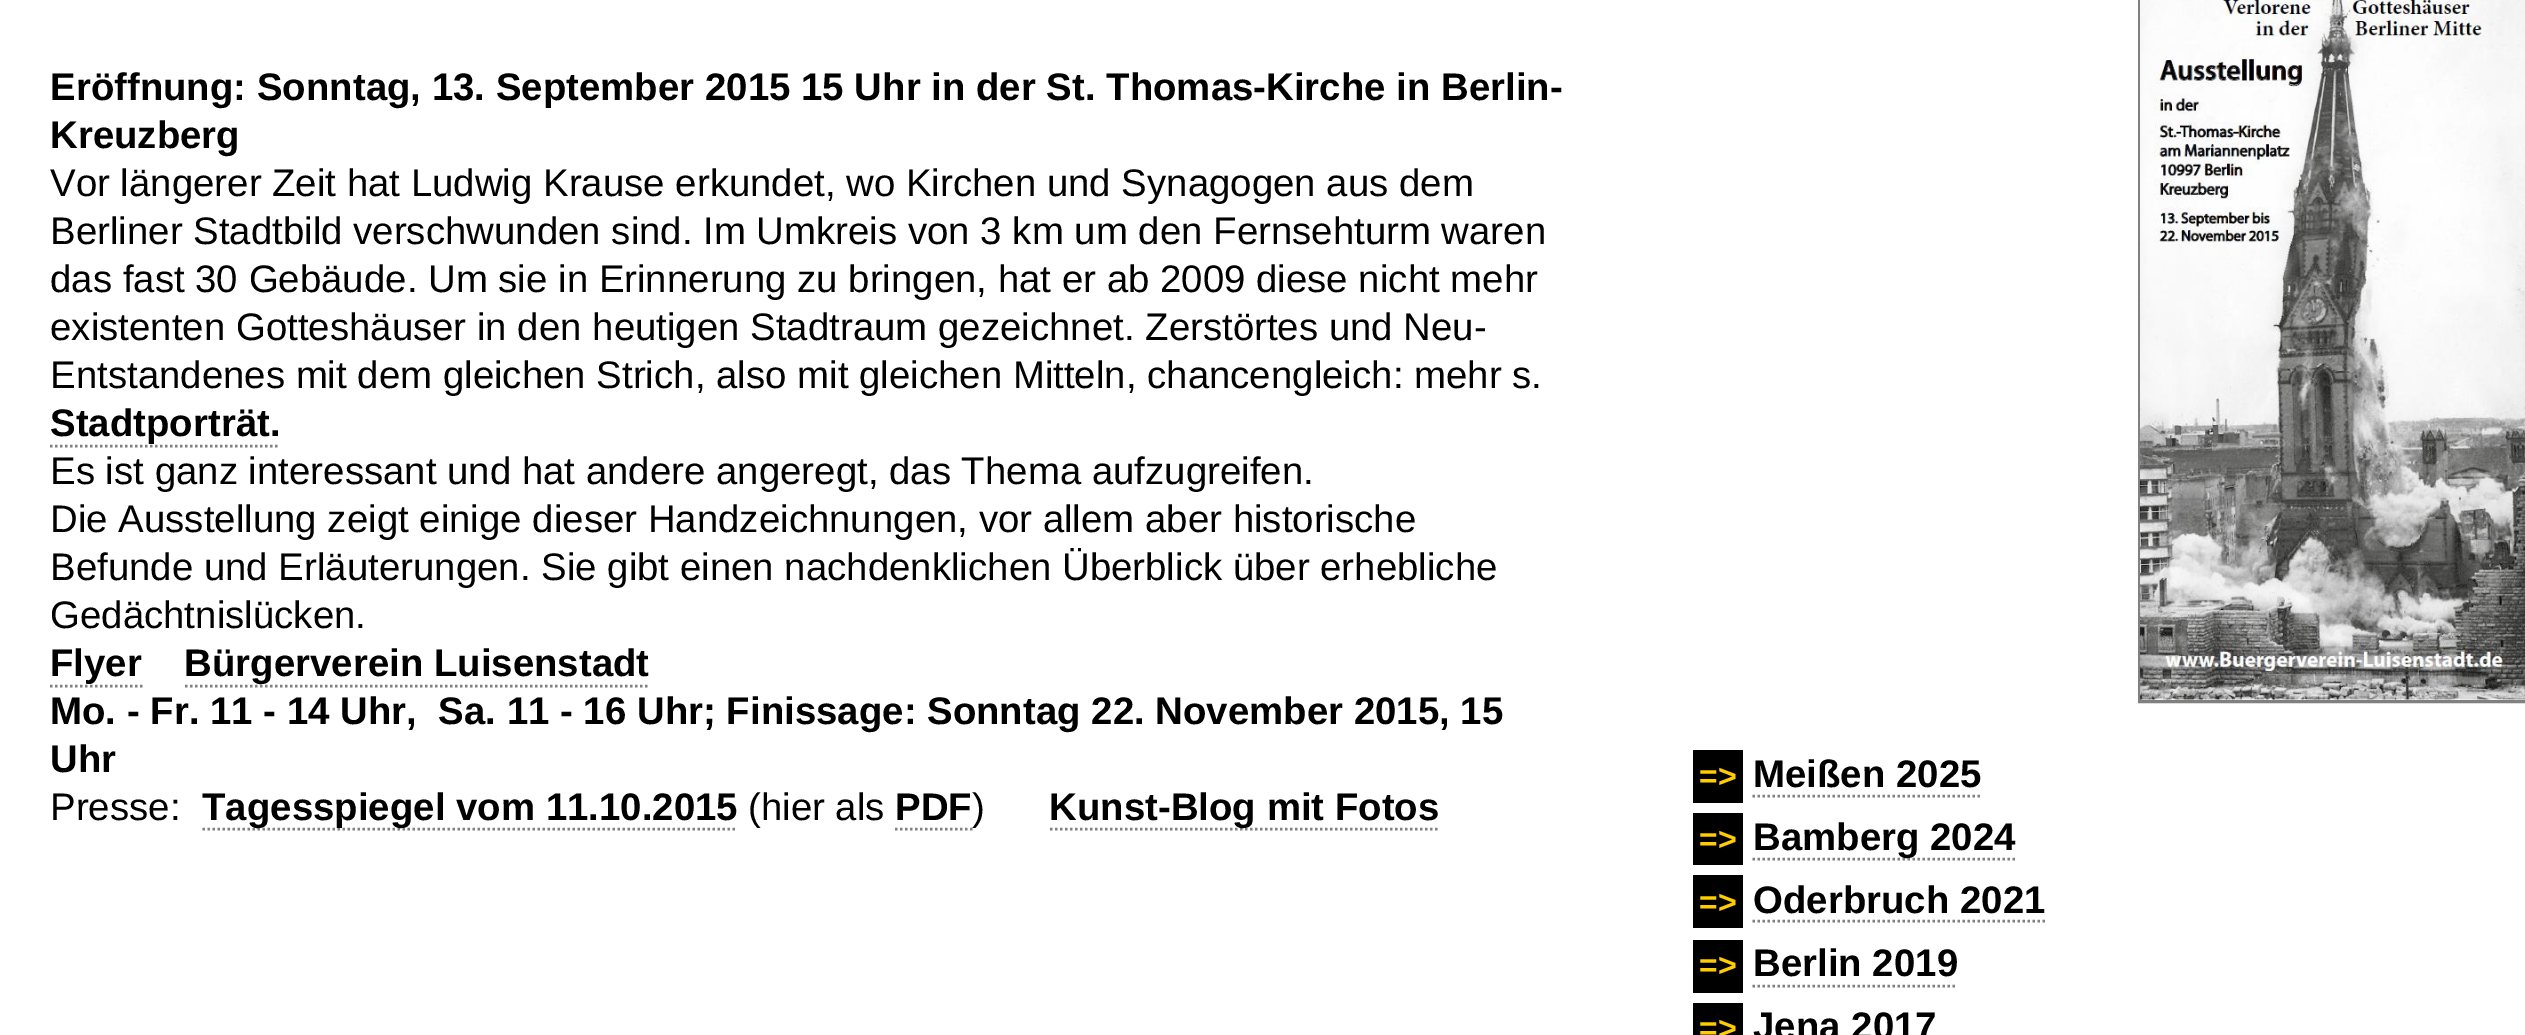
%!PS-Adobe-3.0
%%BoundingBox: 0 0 2525 1035
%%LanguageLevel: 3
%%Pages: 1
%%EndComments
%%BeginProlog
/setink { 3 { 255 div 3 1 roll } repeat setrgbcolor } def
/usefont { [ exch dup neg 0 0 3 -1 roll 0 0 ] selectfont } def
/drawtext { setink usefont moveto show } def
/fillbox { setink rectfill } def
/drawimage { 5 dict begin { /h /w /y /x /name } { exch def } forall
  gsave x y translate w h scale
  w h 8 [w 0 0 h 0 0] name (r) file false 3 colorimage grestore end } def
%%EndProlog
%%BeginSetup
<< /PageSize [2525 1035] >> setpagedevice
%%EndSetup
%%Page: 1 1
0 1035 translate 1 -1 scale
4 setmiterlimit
0 0 2525 1035 255 255 255 fillbox
(Eröffnung: Sonntag, 13. September 2015 15 Uhr in der St. Thomas-Kirche in Berlin-) 50 100 /LiberationSans-Bold 38.4 0 0 0 drawtext
(Kreuzberg) 50 148 /LiberationSans-Bold 38.4 0 0 0 drawtext
(Vor längerer Zeit hat Ludwig Krause erkundet, wo Kirchen und Synagogen aus dem) 50 196 /LiberationSans-Regular 38.4 0 0 0 drawtext
(Berliner Stadtbild verschwunden sind. Im Umkreis von 3 km um den Fernsehturm waren) 50 244 /LiberationSans-Regular 38.4 0 0 0 drawtext
(das fast 30 Gebäude. Um sie in Erinnerung zu bringen, hat er ab 2009 diese nicht mehr) 50 292 /LiberationSans-Regular 38.4 0 0 0 drawtext
(existenten Gotteshäuser in den heutigen Stadtraum gezeichnet. Zerstörtes und Neu-) 50 340 /LiberationSans-Regular 38.4 0 0 0 drawtext
(Entstandenes mit dem gleichen Strich, also mit gleichen Mitteln, chancengleich: mehr s.) 50 388 /LiberationSans-Regular 38.4 0 0 0 drawtext
(Stadtporträt.) 50 436 /LiberationSans-Bold 38.4 0 0 0 drawtext
128 128 128 setink
2.5 setlinewidth
[2.5 2.5] 0 setdash
50 446 moveto 280 446 lineto stroke
(Es ist ganz interessant und hat andere angeregt, das Thema aufzugreifen.) 50 484 /LiberationSans-Regular 38.4 0 0 0 drawtext
(Die Ausstellung zeigt einige dieser Handzeichnungen, vor allem aber historische) 50 532 /LiberationSans-Regular 38.4 0 0 0 drawtext
(Befunde und Erläuterungen. Sie gibt einen nachdenklichen Überblick über erhebliche) 50 580 /LiberationSans-Regular 38.4 0 0 0 drawtext
(Gedächtnislücken.) 50 628 /LiberationSans-Regular 38.4 0 0 0 drawtext
(Flyer) 50 676 /LiberationSans-Bold 38.4 0 0 0 drawtext
128 128 128 setink
50 686 moveto 142.5 686 lineto stroke
185 686 moveto 650 686 lineto stroke
(Bürgerverein Luisenstadt) 184 676 /LiberationSans-Bold 38.4 0 0 0 drawtext
(Mo. - Fr. 11 - 14 Uhr,  Sa. 11 - 16 Uhr; Finissage: Sonntag 22. November 2015, 15) 50 724 /LiberationSans-Bold 38.4 0 0 0 drawtext
(Uhr) 50 772 /LiberationSans-Bold 38.4 0 0 0 drawtext
(Presse:) 50 820 /LiberationSans-Regular 38.4 0 0 0 drawtext
128 128 128 setink
202.5 829 moveto 737.5 829 lineto stroke
(Tagesspiegel vom 11.10.2015) 202 820 /LiberationSans-Bold 38.4 0 0 0 drawtext
(\(hier als) 748 820 /LiberationSans-Regular 38.4 0 0 0 drawtext
(PDF) 895 820 /LiberationSans-Bold 38.4 0 0 0 drawtext
128 128 128 setink
895 829 moveto 972.5 829 lineto stroke
(\)) 972 820 /LiberationSans-Regular 38.4 0 0 0 drawtext
128 128 128 setink
1050 829 moveto 1440 829 lineto stroke
(Kunst-Blog mit Fotos) 1049 820 /LiberationSans-Bold 38.4 0 0 0 drawtext
128 128 128 setink
3 setlinewidth
[] 0 setdash
2139.5 -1.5 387 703 rectstroke
(assets/img1.rgb) 2140 0 385 700 drawimage
1693 750 50 53 0 0 0 fillbox
(=>) 1699 787 /LiberationSans-Bold 32 255 204 0 drawtext
(Meißen 2025) 1753 787 /LiberationSans-Bold 38.4 0 0 0 drawtext
128 128 128 setink
2.5 setlinewidth
[2.5 2.5] 0 setdash
1752.5 796 moveto 1980 796 lineto stroke
1693 813 50 52 0 0 0 fillbox
(=>) 1699 850 /LiberationSans-Bold 32 255 204 0 drawtext
128 128 128 setink
1752.5 859 moveto 2015 859 lineto stroke
(Bamberg 2024) 1753 850 /LiberationSans-Bold 38.4 0 0 0 drawtext
1693 875 50 53 0 0 0 fillbox
(=>) 1699 913 /LiberationSans-Bold 32 255 204 0 drawtext
(Oderbruch 2021) 1753 913 /LiberationSans-Bold 38.4 0 0 0 drawtext
128 128 128 setink
1752.5 921 moveto 2045 921 lineto stroke
1693 940 50 53 0 0 0 fillbox
(=>) 1699 976 /LiberationSans-Bold 32 255 204 0 drawtext
(Berlin 2019) 1753 976 /LiberationSans-Bold 38.4 0 0 0 drawtext
128 128 128 setink
1752.5 986 moveto 1957.5 986 lineto stroke
1693 1003 50 32 0 0 0 fillbox
(=>) 1699 1039 /LiberationSans-Bold 32 255 204 0 drawtext
(Jena 2017) 1753 1039 /LiberationSans-Bold 38.4 0 0 0 drawtext
showpage
%%EOF
